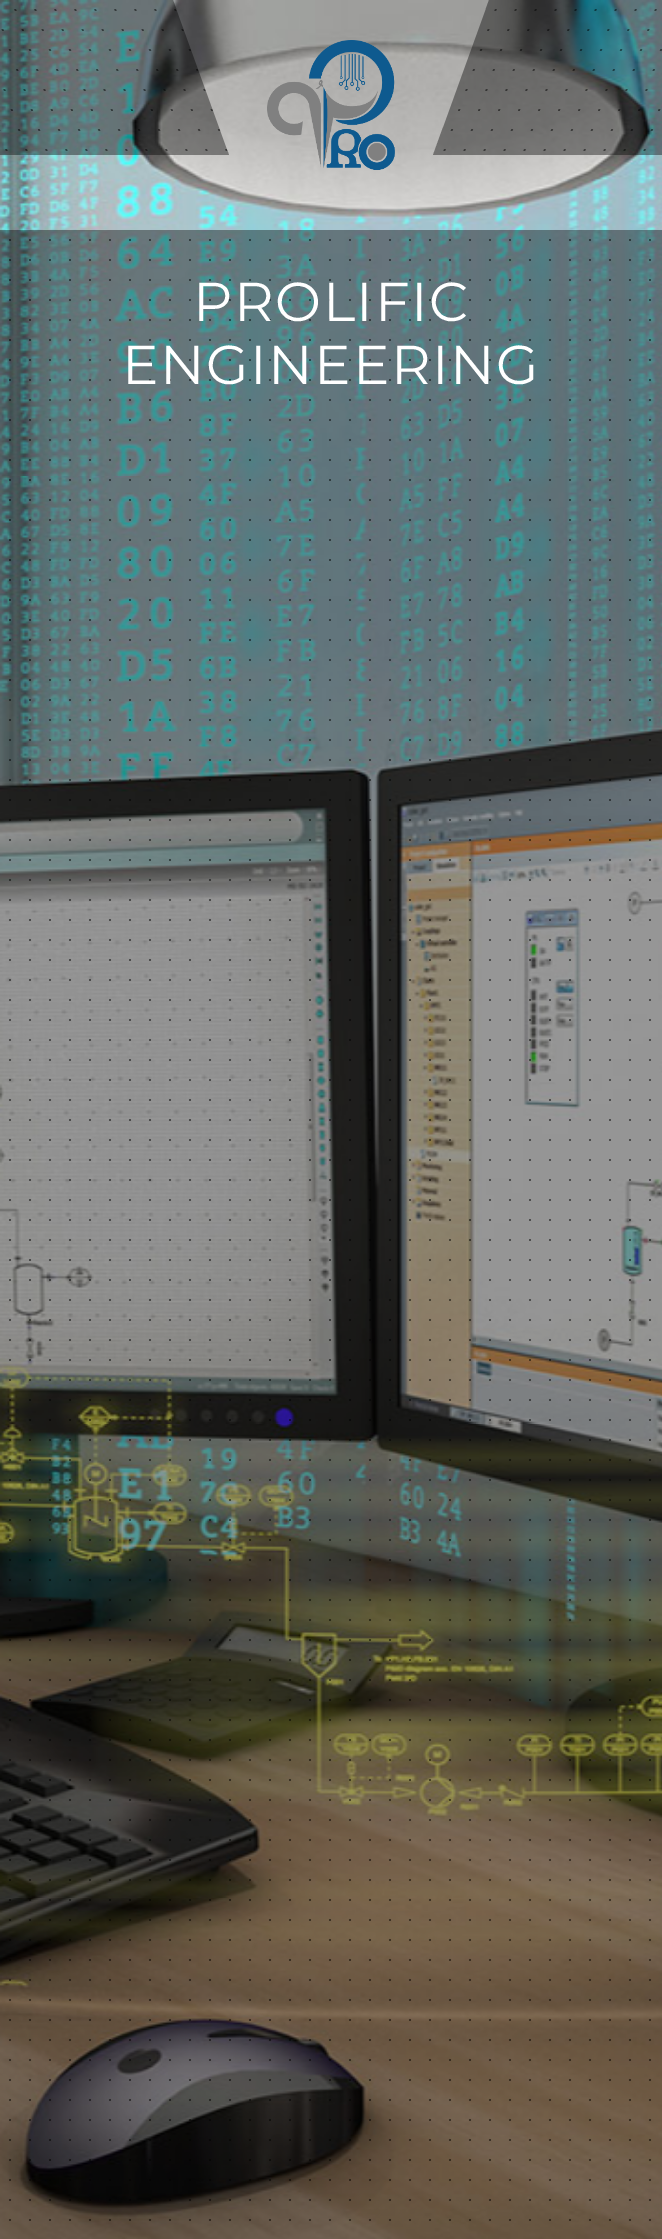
%!PS-Adobe-3.0
%%BoundingBox: 0 0 662 2239
%%LanguageLevel: 3
%%Pages: 1
%%EndComments
%%BeginProlog
/setink { 3 { 255 div 3 1 roll } repeat setrgbcolor } def
/usefont { [ exch dup neg 0 0 3 -1 roll 0 0 ] selectfont } def
/fillbox { setink rectfill } def
/setalpha { dup .setfillconstantalpha .setstrokeconstantalpha } def
/drawimage { 5 dict begin { /h /w /y /x /name } { exch def } forall
  gsave x y translate w h scale
  w h 8 [w 0 0 h 0 0] name (r) file false 3 colorimage grestore end } def
%%EndProlog
%%BeginSetup
<< /PageSize [662 2239] /PageUsesTransparency true >> setpagedevice
%%EndSetup
%%Page: 1 1
0 .pushpdf14devicefilter
0 2239 translate 1 -1 scale
4 setmiterlimit
0 0 662 2239 255 255 255 fillbox
(assets/img1.rgb) 0 0 662 2239 drawimage
0.4 setalpha
0 0 0 setink
-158 0 moveto 173 0 lineto 229 155 lineto -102 155 lineto closepath fill
1 setalpha
(assets/img2.rgb) 0 9 228 142 drawimage
0.4 setalpha
489 0 moveto 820 0 lineto 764 155 lineto 433 155 lineto closepath fill
1 setalpha
(assets/img3.rgb) 443 9 219 142 drawimage
(assets/img4.rgb) 267 40 128 130 drawimage
0.4 setalpha
0 230 662 2009 0 0 0 fillbox
1 setalpha
(assets/img5.rgb) 9 239 642 1982 drawimage
/Montserrat-Regular 54.75 usefont
255 255 255 setink
193 321 moveto 1.6 0 (PROLIFIC) ashow
122 384 moveto 1.6 0 (ENGINEERING) ashow
.poppdf14devicefilter showpage
%%EOF
